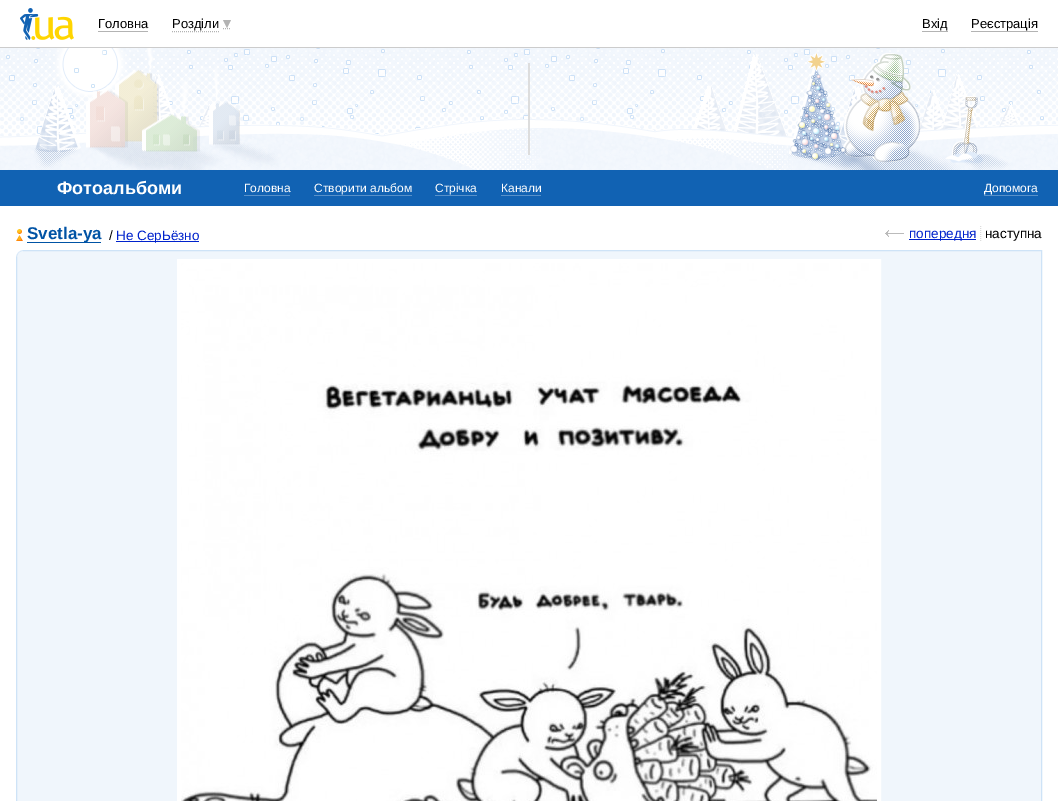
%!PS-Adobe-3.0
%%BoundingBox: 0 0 1058 801
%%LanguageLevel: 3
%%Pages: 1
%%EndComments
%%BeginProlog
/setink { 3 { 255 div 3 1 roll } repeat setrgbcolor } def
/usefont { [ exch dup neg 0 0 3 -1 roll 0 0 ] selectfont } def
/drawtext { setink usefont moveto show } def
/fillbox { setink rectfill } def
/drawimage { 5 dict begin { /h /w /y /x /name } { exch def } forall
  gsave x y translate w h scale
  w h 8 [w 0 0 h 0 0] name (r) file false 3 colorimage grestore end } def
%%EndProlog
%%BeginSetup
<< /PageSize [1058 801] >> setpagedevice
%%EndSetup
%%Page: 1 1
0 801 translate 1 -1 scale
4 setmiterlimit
0 0 1058 801 255 255 255 fillbox
0 47 1058 1 204 204 204 fillbox
(assets/img1.rgb) 20 8 54 32 drawimage
(Головна) 98 28 /LiberationSans-Regular 13 0 0 0 drawtext
98 31 50 1 179 179 179 fillbox
[1 1] 0 setdash
172 31.5 moveto 219 31.5 lineto 223 28.5 moveto 231 28.5 lineto stroke
(Розділи) 172 28 /LiberationSans-Regular 13 0 0 0 drawtext
179 179 179 setink
223 20 moveto 231 20 lineto 227 28 lineto closepath fill
(Вхід) 922 28 /LiberationSans-Regular 13 0 0 0 drawtext
922 31 26 1 179 179 179 fillbox
(Реєстрація) 971 28 /LiberationSans-Regular 13 0 0 0 drawtext
971 31 67 1 179 179 179 fillbox
(assets/img2.rgb) 0 48 1058 122 drawimage
528 63 2 92 221 221 221 fillbox
0 170 1058 36 17 98 179 fillbox
(Фотоальбоми) 57 194 /LiberationSans-Bold 18 255 255 255 drawtext
(Головна) 244 192 /LiberationSans-Regular 12 255 255 255 drawtext
244 195 46 1 88 145 202 fillbox
(Створити альбом) 314 192 /LiberationSans-Regular 12 255 255 255 drawtext
314 195 98 1 88 145 202 fillbox
(Стрічка) 435 192 /LiberationSans-Regular 12 255 255 255 drawtext
435 195 42 1 88 145 202 fillbox
(Канали) 501 192 /LiberationSans-Regular 12 255 255 255 drawtext
501 195 40 1 88 145 202 fillbox
(Допомога) 984 192 /LiberationSans-Regular 12 255 255 255 drawtext
984 195 54 1 88 145 202 fillbox
27 242 74 1 0 83 165 fillbox
(assets/img3.rgb) 16 229 7 12 drawimage
(Svetla-ya) 27 239 /LiberationSans-Bold 17 0 83 165 drawtext
(/) 109 240 /LiberationSans-Regular 13.5 0 0 0 drawtext
116 241 83 1 0 34 204 fillbox
(Не СерЬёзно) 116 240 /LiberationSans-Regular 13.5 0 34 204 drawtext
221 221 221 setink
980.5 226 moveto 980.5 241 lineto stroke
(assets/img4.rgb) 885 230 19 7 drawimage
909 239 67 1 0 34 204 fillbox
(попередня) 909 238 /LiberationSans-Regular 13.5 0 34 204 drawtext
(наступна) 985 238 /LiberationSans-Regular 13.5 0 0 0 drawtext
240 246 252 setink
16.5 250.5 moveto 1041.5 250.5 lineto 1041.5 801.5 lineto 16.5 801.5 lineto closepath gsave fill grestore
206 227 247 setink
[] 0 setdash
stroke
255 255 255 setink
4 setlinewidth
179 261 700 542 rectstroke
(assets/img5.rgb) 181 263 696 538 drawimage
(assets/img6.rgb) 16 250 7 7 drawimage
showpage
%%EOF
